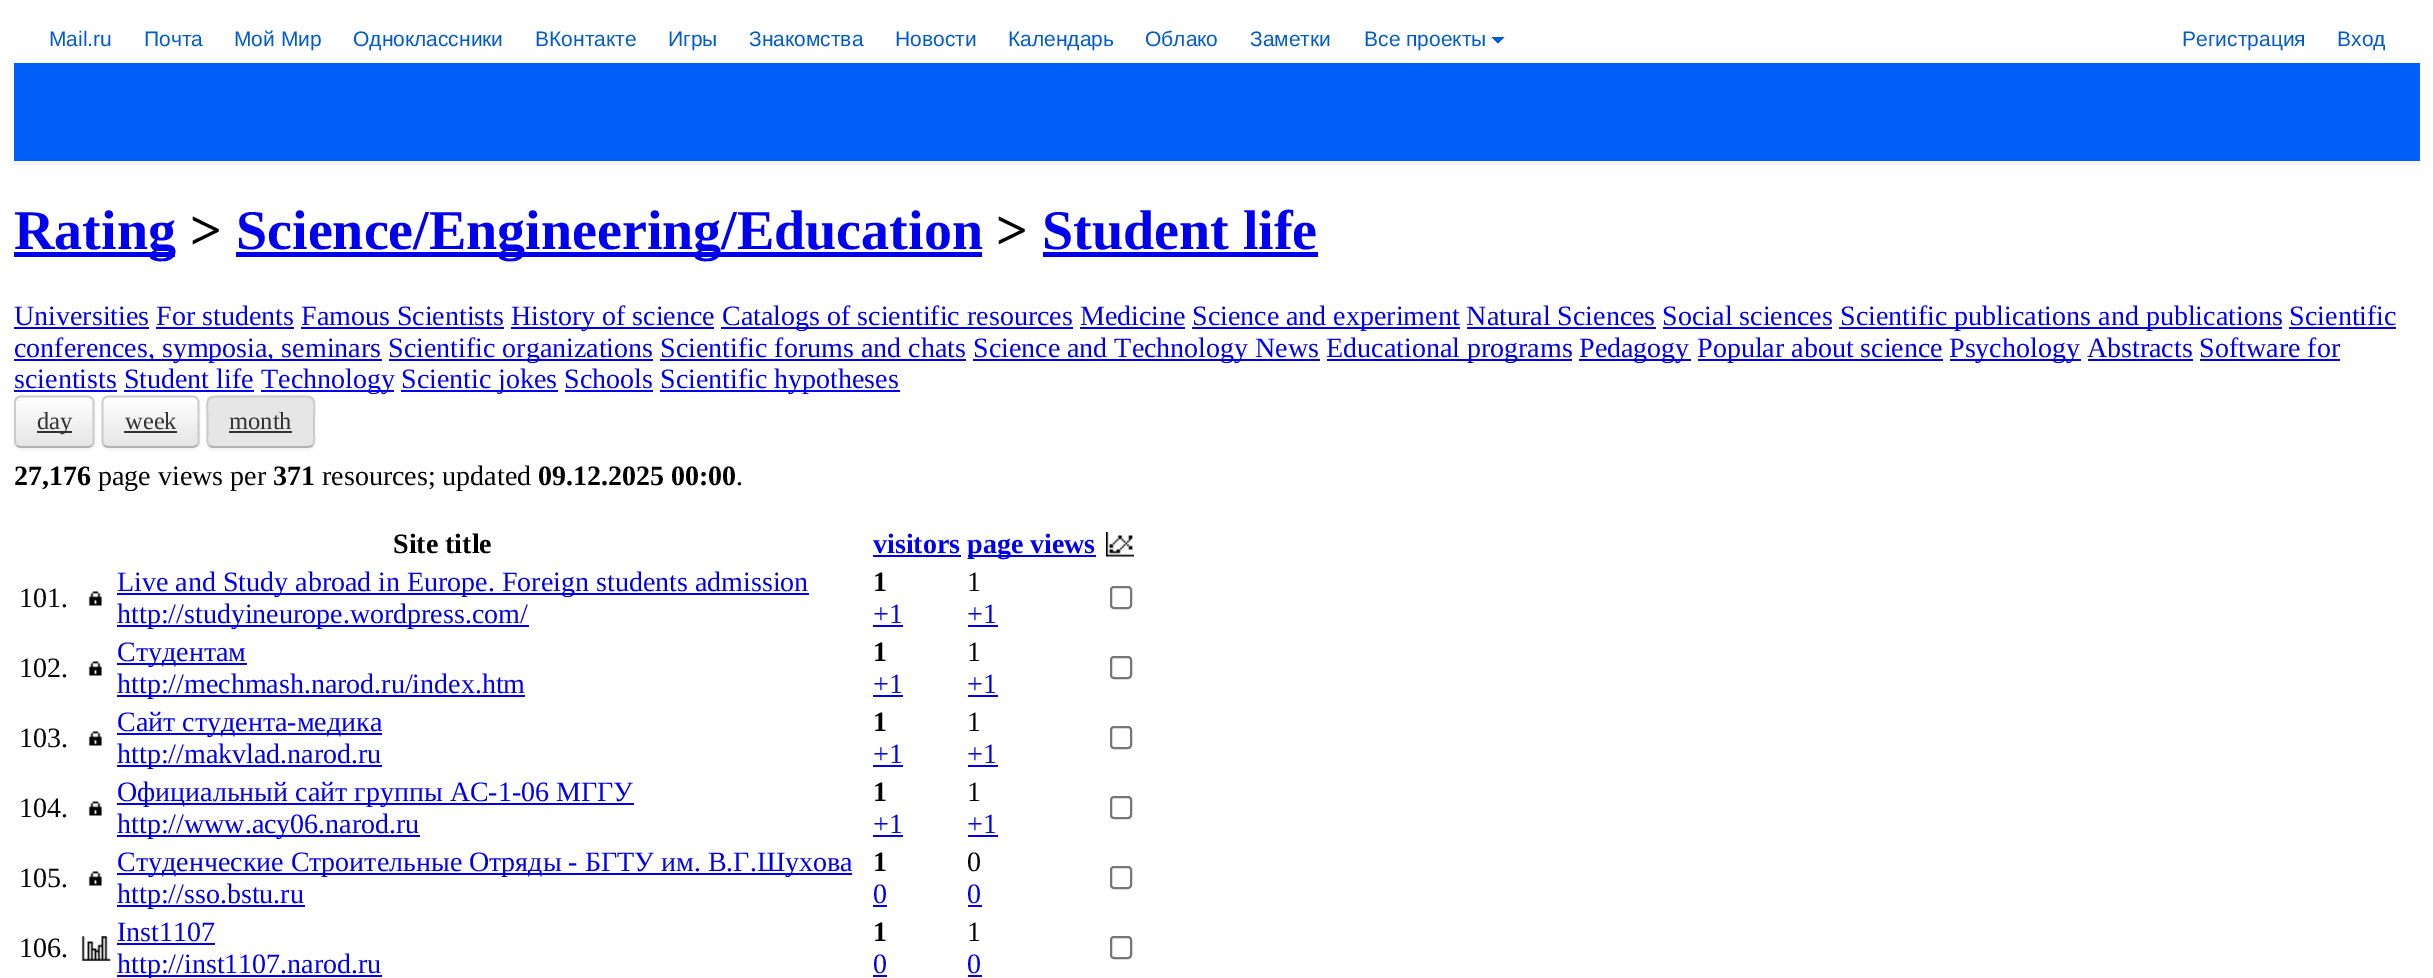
%!PS-Adobe-3.0
%%BoundingBox: 0 0 2433 978
%%LanguageLevel: 3
%%Pages: 1
%%EndComments
%%BeginProlog
/setink { 3 { 255 div 3 1 roll } repeat setrgbcolor } def
/usefont { [ exch dup neg 0 0 3 -1 roll 0 0 ] selectfont } def
/drawtext { setink usefont moveto show } def
/fillbox { setink rectfill } def
/setalpha { dup .setfillconstantalpha .setstrokeconstantalpha } def
/rrect { 5 dict begin { /r /h /w /y /x } { exch def } forall
  x r add y moveto x w add y 2 copy h add r arct x w add y h add x 1 index r arct
  x y h add x y r arct x y 2 copy exch w add exch r arct closepath end } def
/softshadow { 12 dict begin { /a /b /q /h /w /y /x } { exch def } forall gsave /was 0 def
  9 -2 -9 { dup b mul 4 div /e exch def 1 sub .425 mul 2.718 exch exp 1 add a .99 .min exch div /now exch def
    1 1 now sub 1 was sub div sub setalpha /was now def
    w h .min e 2 mul add 0 gt { x e sub y e sub w e 2 mul add h e 2 mul add
      q e add b .6 mul add w h .min 2 div e add .min 0 .max rrect fill } if } for grestore end } def
/drawimage { 5 dict begin { /h /w /y /x /name } { exch def } forall
  gsave x y translate w h scale
  w h 8 [w 0 0 h 0 0] name (r) file false 3 colorimage grestore end } def
%%EndProlog
%%BeginSetup
<< /PageSize [2433 978] /PageUsesTransparency true >> setpagedevice
%%EndSetup
%%Page: 1 1
0 .pushpdf14devicefilter
0 978 translate 1 -1 scale
4 setmiterlimit
0 0 2433 978 255 255 255 fillbox
(Mail.ru) 49 46 /LiberationSans-Regular 21 0 91 209 drawtext
(Почта) 144 46 /LiberationSans-Regular 21 0 91 209 drawtext
(Мой Мир) 234 46 /LiberationSans-Regular 21 0 91 209 drawtext
(Одноклассники) 353 46 /LiberationSans-Regular 21 0 91 209 drawtext
(ВКонтакте) 535 46 /LiberationSans-Regular 21 0 91 209 drawtext
(Игры) 668 46 /LiberationSans-Regular 21 0 91 209 drawtext
(Знакомства) 749 46 /LiberationSans-Regular 21 0 91 209 drawtext
(Новости) 895 46 /LiberationSans-Regular 21 0 91 209 drawtext
(Календарь) 1008 46 /LiberationSans-Regular 21 0 91 209 drawtext
(Облако) 1145 46 /LiberationSans-Regular 21 0 91 209 drawtext
(Заметки) 1250 46 /LiberationSans-Regular 21 0 91 209 drawtext
(Все проекты) 1364 46 /LiberationSans-Regular 21 0 91 209 drawtext
1491 37 moveto 1505 37 lineto 1498 44 lineto closepath fill
255 255 255 setink
1505 37 moveto 1505 51 lineto 1498 44 lineto closepath 1491 51 moveto 1491 37 lineto 1498 44 lineto closepath fill
(Регистрация) 2182 46 /LiberationSans-Regular 21 0 91 209 drawtext
(Вход) 2337 46 /LiberationSans-Regular 21 0 91 209 drawtext
14 161 2406 4 245 245 245 fillbox
14 63 2406 98 0 95 249 fillbox
14 252 161 5 0 0 238 fillbox
(Rating) 14 249 /LiberationSerif-Bold 56 0 0 238 drawtext
(>) 190 249 /LiberationSerif-Bold 56 0 0 0 drawtext
236 252 746 5 0 0 238 fillbox
(Science/Engineering/Education) 236 249 /LiberationSerif-Bold 56 0 0 238 drawtext
(>) 996 249 /LiberationSerif-Bold 56 0 0 0 drawtext
(Student life) 1042 249 /LiberationSerif-Bold 56 0 0 238 drawtext
1043 252 275 5 0 0 238 fillbox
(Universities For students Famous Scientists) 14 325 /LiberationSerif-Regular 28 0 0 238 drawtext
14 327 135 2 0 0 238 fillbox
511 327 203 2 0 0 238 fillbox
(History of science) 511 325 /LiberationSerif-Regular 28 0 0 238 drawtext
721 327 352 2 0 0 238 fillbox
(Catalogs of scientific resources Medicine) 722 325 /LiberationSerif-Regular 28 0 0 238 drawtext
1192 327 268 2 0 0 238 fillbox
(Science and experiment Natural Sciences Social sciences) 1192 325 /LiberationSerif-Regular 28 0 0 238 drawtext
1839 327 443 2 0 0 238 fillbox
(Scientific publications and publications Scientific) 1840 325 /LiberationSerif-Regular 28 0 0 238 drawtext
156 327 138 2 0 0 238 fillbox
301 327 203 2 0 0 238 fillbox
1080 327 105 2 0 0 238 fillbox
1467 327 189 2 0 0 238 fillbox
1663 327 169 2 0 0 238 fillbox
14 359 368 2 0 0 238 fillbox
(conferences, symposia, seminars) 14 357 /LiberationSerif-Regular 28 0 0 238 drawtext
2289 327 107 2 0 0 238 fillbox
389 359 264 2 0 0 238 fillbox
(Scientific organizations Scientific forums and chats) 388 357 /LiberationSerif-Regular 28 0 0 238 drawtext
973 359 347 2 0 0 238 fillbox
(Science and Technology News) 973 357 /LiberationSerif-Regular 28 0 0 238 drawtext
1327 359 245 2 0 0 238 fillbox
(Educational programs) 1326 357 /LiberationSerif-Regular 28 0 0 238 drawtext
1579 359 112 2 0 0 238 fillbox
(Pedagogy) 1579 357 /LiberationSerif-Regular 28 0 0 238 drawtext
1698 359 245 2 0 0 238 fillbox
(Popular about science) 1697 357 /LiberationSerif-Regular 28 0 0 238 drawtext
1950 359 131 2 0 0 238 fillbox
(Psychology Abstracts Software for) 1949 357 /LiberationSerif-Regular 28 0 0 238 drawtext
660 359 306 2 0 0 238 fillbox
2088 359 105 2 0 0 238 fillbox
(scientists Student life) 14 388 /LiberationSerif-Regular 28 0 0 238 drawtext
2200 359 140 2 0 0 238 fillbox
14 390 103 2 0 0 238 fillbox
261 390 133 2 0 0 238 fillbox
(Technology) 261 388 /LiberationSerif-Regular 28 0 0 238 drawtext
401 390 157 2 0 0 238 fillbox
(Scientic jokes Schools) 401 388 /LiberationSerif-Regular 28 0 0 238 drawtext
660 390 240 2 0 0 238 fillbox
(Scientific hypotheses) 660 388 /LiberationSerif-Regular 28 0 0 238 drawtext
124 390 130 2 0 0 238 fillbox
565 390 88 2 0 0 238 fillbox
0 0 0 setink
14 397 81 53 7 2 0.05 softshadow
245 245 245 setink
14 396 81 52 7 rrect fill
gsave
14 396 81 52 7 rrect clip newpath
gsave 14 397 moveto 95 397 lineto 95 446 lineto 14 446 lineto closepath clip newpath
<< /ShadingType 2 /ColorSpace /DeviceRGB /Coords [54 397 54 446] /Extend [true true] /Function << /FunctionType 2 /Domain [0 1] /C0 [1 1 1] /C1 [0.902 0.902 0.902] /N 1 >> >> shfill grestore
grestore
255 255 255 setink
21 399 moveto 88 399 lineto 90 399 93 401 93 404 curveto 93 394 85 397 77 397 curveto 32 397 lineto 24 397 16 394 16 404 curveto 16 401 18 399 21 399 curveto closepath fill
179 179 179 setink
1.8 setlinewidth
92 445.5 moveto 90.5 446.5 89 447 87.5 447 curveto 21 447 lineto 19.5 447 18 446.5 16.5 445.5 curveto stroke
204 204 204 setink
16.5 445.5 moveto 15.5 444 15 442.5 15 441 curveto 15 402.5 lineto 15 401 15.5 399.5 16.5 398 curveto 18 397 19.5 396.5 21 396.5 curveto 87.5 396.5 lineto 89 396.5 90.5 397 92 398 curveto 93 399.5 93.5 401 93.5 402.5 curveto 93.5 441 lineto 93.5 442.5 93 444 92 445.5 curveto stroke
37 431 35 2 51 51 51 fillbox
(day) 37 429 /LiberationSerif-Regular 24.5 51 51 51 drawtext
0 0 0 setink
102 397 98 53 7 2 0.05 softshadow
245 245 245 setink
102 396 98 52 7 rrect fill
gsave
102 396 98 52 7 rrect clip newpath
gsave 102 397 moveto 200 397 lineto 200 446 lineto 102 446 lineto closepath clip newpath
<< /ShadingType 2 /ColorSpace /DeviceRGB /Coords [151 397 151 446] /Extend [true true] /Function << /FunctionType 2 /Domain [0 1] /C0 [1 1 1] /C1 [0.902 0.902 0.902] /N 1 >> >> shfill grestore
grestore
179 179 179 setink
197 445.5 moveto 195.5 446.5 194 447 192.5 447 curveto 108.5 447 lineto 107 447 105.5 446.5 104 445.5 curveto stroke
204 204 204 setink
104 445.5 moveto 103 444 102.5 442.5 102.5 441 curveto 102.5 402.5 lineto 102.5 401 103 399.5 104 398 curveto 105.5 397 107 396.5 108.5 396.5 curveto 192.5 396.5 lineto 194 396.5 195.5 397 197 398 curveto 198 399.5 198.5 401 198.5 402.5 curveto 198.5 441 lineto 198.5 442.5 198 444 197 445.5 curveto stroke
(week) 125 429 /LiberationSerif-Regular 24.5 51 51 51 drawtext
124 431 53 2 51 51 51 fillbox
0 0 0 setink
207 397 108 53 7 2 0.05 softshadow
230 230 230 setink
207 396 108 52 7 rrect fill
179 179 179 setink
312.5 445.5 moveto 311 446.5 309.5 447 308 447 curveto 213.5 447 lineto 212 447 210.5 446.5 209 445.5 curveto stroke
204 204 204 setink
209 445.5 moveto 206.5 442.5 207.5 438 207.5 434.5 curveto 207.5 422 lineto 207.5 394.5 203 396.5 229 396.5 curveto 292 396.5 lineto 318.5 396.5 314 394.5 314 422 curveto 314 434.5 lineto 314 438 315 442.5 312.5 445.5 curveto stroke
(month) 229 429 /LiberationSerif-Regular 24.5 51 51 51 drawtext
229 431 63 2 51 51 51 fillbox
(27,176) 14 485 /LiberationSerif-Bold 28 0 0 0 drawtext
(page views per) 98 485 /LiberationSerif-Regular 28 0 0 0 drawtext
(371) 273 485 /LiberationSerif-Bold 28 0 0 0 drawtext
(resources; updated) 322 485 /LiberationSerif-Regular 28 0 0 0 drawtext
(09.12.2025 00:00) 538 485 /LiberationSerif-Bold 28 0 0 0 drawtext
(.) 736 485 /LiberationSerif-Regular 28 0 0 0 drawtext
(Site title) 393 553 /LiberationSerif-Bold 28 0 0 0 drawtext
(visitors) 873 553 /LiberationSerif-Bold 28 0 0 238 drawtext
873 555 88 2 0 0 238 fillbox
968 555 128 2 0 0 238 fillbox
(page views) 967 553 /LiberationSerif-Bold 28 0 0 238 drawtext
(assets/img1.rgb) 1106 532 28 25 drawimage
(101.) 19 607 /LiberationSerif-Regular 28 0 0 0 drawtext
(assets/img2.rgb) 88 591 14 15 drawimage
117 593 692 2 0 0 238 fillbox
(Live and Study abroad in Europe. Foreign students admission) 117 591 /LiberationSerif-Regular 28 0 0 238 drawtext
117 625 412 2 0 0 238 fillbox
(http://studyineurope.wordpress.com/) 117 623 /LiberationSerif-Regular 28 0 0 238 drawtext
(1) 873 591 /LiberationSerif-Bold 28 0 0 0 drawtext
(+1) 873 623 /LiberationSerif-Regular 28 0 0 238 drawtext
873 625 30 2 0 0 238 fillbox
(1) 967 591 /LiberationSerif-Regular 28 0 0 0 drawtext
(+1) 967 623 /LiberationSerif-Regular 28 0 0 238 drawtext
968 625 30 2 0 0 238 fillbox
118 118 118 setink
2 setlinewidth
1111 587 20 21 3 rrect stroke
(102.) 19 677 /LiberationSerif-Regular 28 0 0 0 drawtext
(assets/img2.rgb) 88 661 14 15 drawimage
117 663 130 2 0 0 238 fillbox
(Студентам) 117 661 /LiberationSerif-Regular 28 0 0 238 drawtext
117 695 408 2 0 0 238 fillbox
(http://mechmash.narod.ru/index.htm) 117 693 /LiberationSerif-Regular 28 0 0 238 drawtext
(1) 873 661 /LiberationSerif-Bold 28 0 0 0 drawtext
(+1) 873 693 /LiberationSerif-Regular 28 0 0 238 drawtext
873 695 30 2 0 0 238 fillbox
(1) 967 661 /LiberationSerif-Regular 28 0 0 0 drawtext
(+1) 967 693 /LiberationSerif-Regular 28 0 0 238 drawtext
968 695 30 2 0 0 238 fillbox
118 118 118 setink
1111 657 20 21 3 rrect stroke
(103.) 19 747 /LiberationSerif-Regular 28 0 0 0 drawtext
(assets/img2.rgb) 88 731 14 15 drawimage
117 733 265 2 0 0 238 fillbox
(Сайт студента-медика) 117 731 /LiberationSerif-Regular 28 0 0 238 drawtext
117 765 265 2 0 0 238 fillbox
(http://makvlad.narod.ru) 117 763 /LiberationSerif-Regular 28 0 0 238 drawtext
(1) 873 731 /LiberationSerif-Bold 28 0 0 0 drawtext
(+1) 873 763 /LiberationSerif-Regular 28 0 0 238 drawtext
873 765 30 2 0 0 238 fillbox
(1) 967 731 /LiberationSerif-Regular 28 0 0 0 drawtext
(+1) 967 763 /LiberationSerif-Regular 28 0 0 238 drawtext
968 765 30 2 0 0 238 fillbox
118 118 118 setink
1111 727 20 21 3 rrect stroke
(104.) 19 817 /LiberationSerif-Regular 28 0 0 0 drawtext
(assets/img2.rgb) 88 801 14 15 drawimage
117 803 517 2 0 0 238 fillbox
(Официальный сайт группы АС-1-06 МГГУ) 117 801 /LiberationSerif-Regular 28 0 0 238 drawtext
117 835 303 2 0 0 238 fillbox
(http://www.acy06.narod.ru) 117 833 /LiberationSerif-Regular 28 0 0 238 drawtext
(1) 873 801 /LiberationSerif-Bold 28 0 0 0 drawtext
(+1) 873 833 /LiberationSerif-Regular 28 0 0 238 drawtext
873 835 30 2 0 0 238 fillbox
(1) 967 801 /LiberationSerif-Regular 28 0 0 0 drawtext
(+1) 967 833 /LiberationSerif-Regular 28 0 0 238 drawtext
968 835 30 2 0 0 238 fillbox
118 118 118 setink
1111 797 20 21 3 rrect stroke
(105.) 19 887 /LiberationSerif-Regular 28 0 0 0 drawtext
(assets/img2.rgb) 88 871 14 15 drawimage
117 873 735 2 0 0 238 fillbox
(Студенческие Строительные Отряды - БГТУ им. В.Г.Шухова) 117 871 /LiberationSerif-Regular 28 0 0 238 drawtext
117 905 188 2 0 0 238 fillbox
(http://sso.bstu.ru) 117 903 /LiberationSerif-Regular 28 0 0 238 drawtext
(1) 873 871 /LiberationSerif-Bold 28 0 0 0 drawtext
(0) 873 903 /LiberationSerif-Regular 28 0 0 238 drawtext
873 905 14 2 0 0 238 fillbox
(0) 967 871 /LiberationSerif-Regular 28 0 0 0 drawtext
(0) 967 903 /LiberationSerif-Regular 28 0 0 238 drawtext
968 905 14 2 0 0 238 fillbox
118 118 118 setink
1111 867 20 21 3 rrect stroke
(106.) 19 957 /LiberationSerif-Regular 28 0 0 0 drawtext
(assets/img3.rgb) 81 936 30 25 drawimage
(Inst1107) 117 941 /LiberationSerif-Regular 28 0 0 238 drawtext
117 943 98 2 0 0 238 fillbox
117 975 265 2 0 0 238 fillbox
(http://inst1107.narod.ru) 117 973 /LiberationSerif-Regular 28 0 0 238 drawtext
(1) 873 941 /LiberationSerif-Bold 28 0 0 0 drawtext
(0) 873 973 /LiberationSerif-Regular 28 0 0 238 drawtext
873 975 14 2 0 0 238 fillbox
(1) 967 941 /LiberationSerif-Regular 28 0 0 0 drawtext
(0) 967 973 /LiberationSerif-Regular 28 0 0 238 drawtext
968 975 14 2 0 0 238 fillbox
118 118 118 setink
1111 937 20 21 3 rrect stroke
.poppdf14devicefilter showpage
%%EOF
